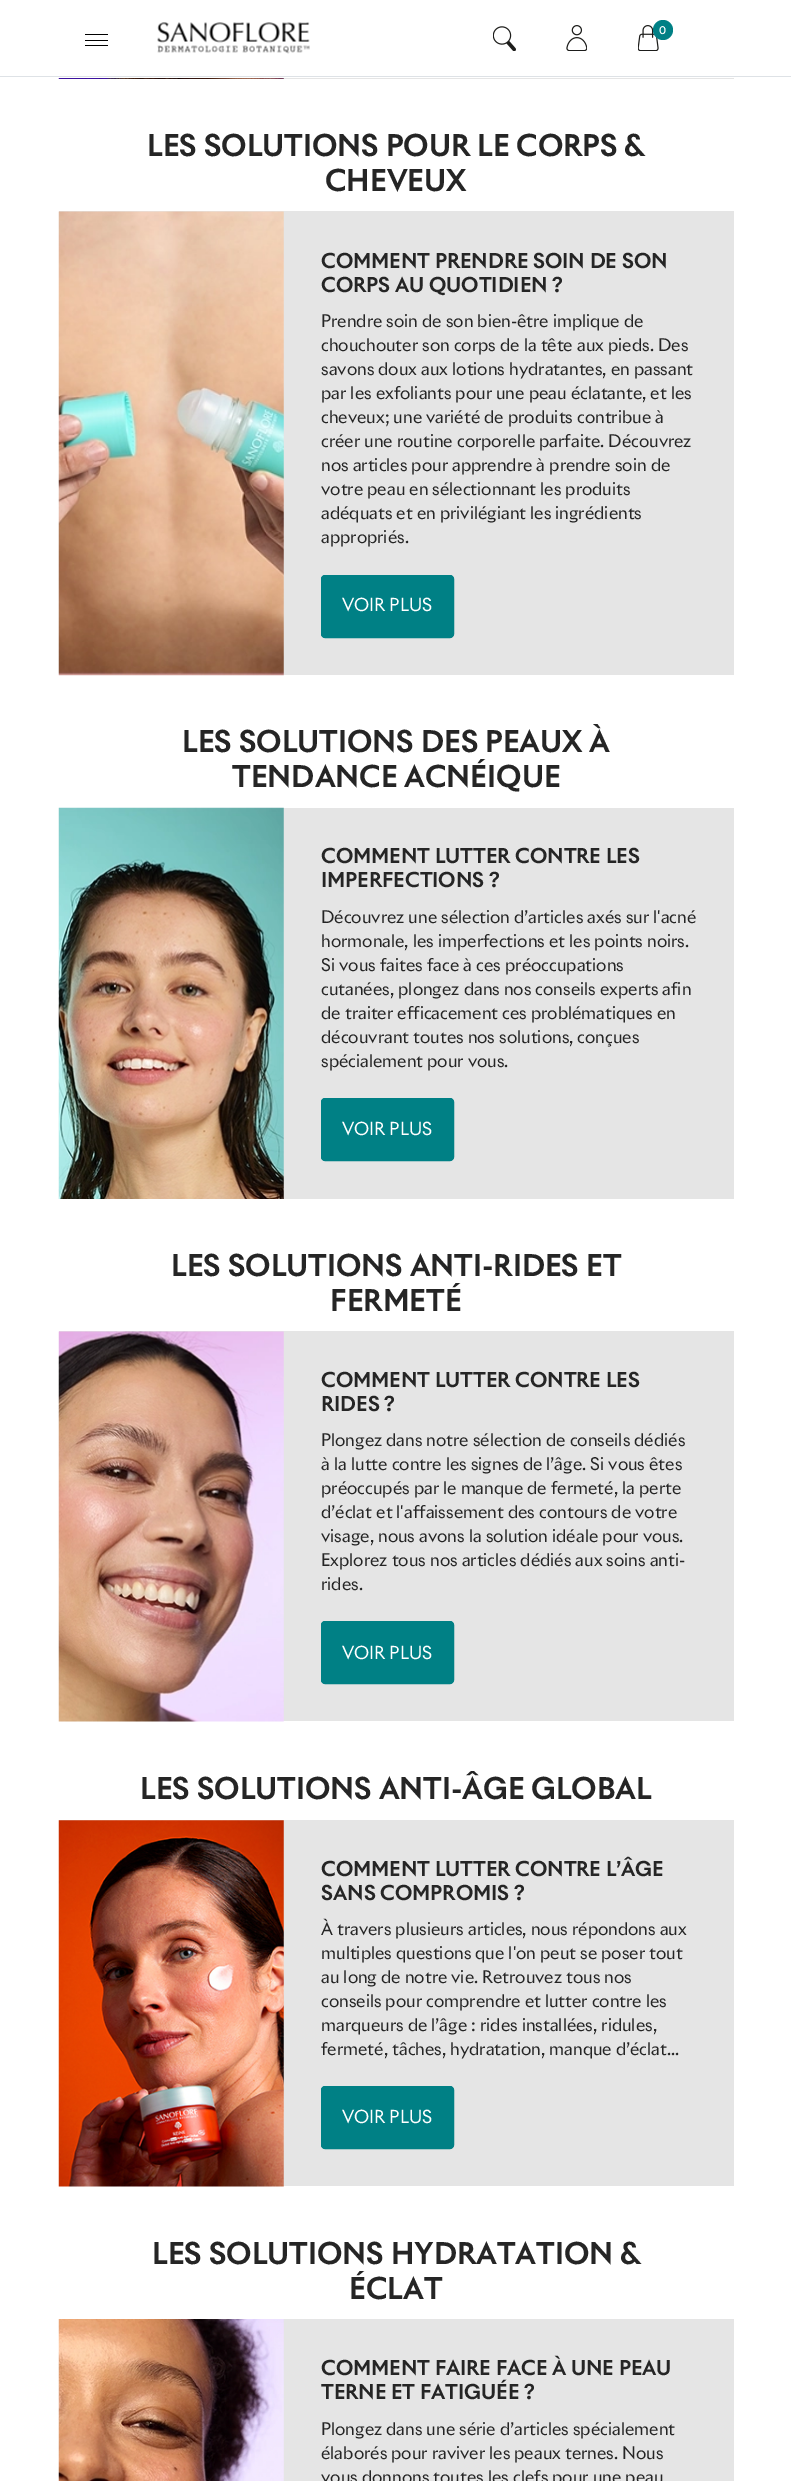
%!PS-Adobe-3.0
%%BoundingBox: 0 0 791 2481
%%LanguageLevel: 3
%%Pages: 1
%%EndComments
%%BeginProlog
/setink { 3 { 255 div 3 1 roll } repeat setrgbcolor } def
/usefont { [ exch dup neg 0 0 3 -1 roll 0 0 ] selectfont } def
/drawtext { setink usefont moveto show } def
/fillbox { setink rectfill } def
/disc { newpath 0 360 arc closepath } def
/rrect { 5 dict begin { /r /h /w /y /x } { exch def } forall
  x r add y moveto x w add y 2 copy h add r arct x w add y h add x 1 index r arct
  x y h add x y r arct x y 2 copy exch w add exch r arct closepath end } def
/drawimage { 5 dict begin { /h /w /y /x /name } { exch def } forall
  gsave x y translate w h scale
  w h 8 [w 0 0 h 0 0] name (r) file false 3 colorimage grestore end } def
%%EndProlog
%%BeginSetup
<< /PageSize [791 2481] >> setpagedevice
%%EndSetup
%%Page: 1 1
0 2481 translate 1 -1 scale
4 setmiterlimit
0 0 791 2481 255 255 255 fillbox
0 76 791 1 222 226 230 fillbox
(assets/img1.rgb) 157 22 153 32 drawimage
(assets/img2.rgb) 493 26 23 25 drawimage
(assets/img3.rgb) 566 25 21 26 drawimage
(assets/img4.rgb) 638 25 21 26 drawimage
0 128 133 setink
663 30 10 disc fill
(0) 659 34 /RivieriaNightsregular-Bold 10 255 255 255 drawtext
85 34 23 1 0 0 0 fillbox
85 40 23 1 0 0 0 fillbox
85 45 23 1 0 0 0 fillbox
283 78 451 1 229 229 229 fillbox
(assets/img5.rgb) 58 78 226 1 drawimage
59 211 675 464 229 229 229 fillbox
(LES SOLUTIONS POUR LE CORPS &) 147 156 /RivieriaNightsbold-Bold 29.25 37 37 37 drawtext
(CHEVEUX) 325 191 /RivieriaNightsbold-Bold 29.25 37 37 37 drawtext
(assets/img6.rgb) 58 211 226 465 drawimage
(COMMENT PRENDRE SOIN DE SON) 321 268 /RivieriaNightsbold-Bold 20 37 37 37 drawtext
(CORPS AU QUOTIDIEN ?) 321 292 /RivieriaNightsbold-Bold 20 37 37 37 drawtext
(Prendre soin de son bien-être implique de) 321 327 /RivieriaNightsregular-Regular 17 37 37 37 drawtext
(chouchouter son corps de la tête aux pieds. Des) 321 351 /RivieriaNightsregular-Regular 17 37 37 37 drawtext
(savons doux aux lotions hydratantes, en passant) 321 375 /RivieriaNightsregular-Regular 17 37 37 37 drawtext
(par les exfoliants pour une peau éclatante, et les) 321 399 /RivieriaNightsregular-Regular 17 37 37 37 drawtext
(cheveux; une variété de produits contribue à) 321 423 /RivieriaNightsregular-Regular 17 37 37 37 drawtext
(créer une routine corporelle parfaite. Découvrez) 321 447 /RivieriaNightsregular-Regular 17 37 37 37 drawtext
(nos articles pour apprendre à prendre soin de) 321 471 /RivieriaNightsregular-Regular 17 37 37 37 drawtext
(votre peau en sélectionnant les produits) 321 495 /RivieriaNightsregular-Regular 17 37 37 37 drawtext
(adéquats et en privilégiant les ingrédients) 321 519 /RivieriaNightsregular-Regular 17 37 37 37 drawtext
(appropriés.) 321 543 /RivieriaNightsregular-Regular 17 37 37 37 drawtext
0 128 133 setink
321.5 575.5 132 62 3.5 rrect gsave fill grestore
stroke
(VOIR PLUS) 342 611 /RivieriaNightsregular-Regular 17.5 255 255 255 drawtext
283 808 451 391 229 229 229 fillbox
(LES SOLUTIONS DES PEAUX À) 182 752 /RivieriaNightsbold-Bold 29.25 37 37 37 drawtext
(TENDANCE ACNÉIQUE) 232 787 /RivieriaNightsbold-Bold 29.25 37 37 37 drawtext
(assets/img7.rgb) 58 807 226 392 drawimage
(COMMENT LUTTER CONTRE LES) 321 863 /RivieriaNightsbold-Bold 20 37 37 37 drawtext
(IMPERFECTIONS ?) 321 887 /RivieriaNightsbold-Bold 20 37 37 37 drawtext
(Découvrez une sélection d’articles axés sur l'acné) 321 923 /RivieriaNightsregular-Regular 17 37 37 37 drawtext
(hormonale, les imperfections et les points noirs.) 321 947 /RivieriaNightsregular-Regular 17 37 37 37 drawtext
(Si vous faites face à ces préoccupations) 321 971 /RivieriaNightsregular-Regular 17 37 37 37 drawtext
(cutanées, plongez dans nos conseils experts afin) 321 995 /RivieriaNightsregular-Regular 17 37 37 37 drawtext
(de traiter efficacement ces problématiques en) 321 1019 /RivieriaNightsregular-Regular 17 37 37 37 drawtext
(découvrant toutes nos solutions, conçues) 321 1043 /RivieriaNightsregular-Regular 17 37 37 37 drawtext
(spécialement pour vous.) 321 1067 /RivieriaNightsregular-Regular 17 37 37 37 drawtext
0 128 133 setink
321.5 1098.5 132 62 3.5 rrect gsave fill grestore
stroke
(VOIR PLUS) 342 1135 /RivieriaNightsregular-Regular 17.5 255 255 255 drawtext
59 1331 675 390 229 229 229 fillbox
(LES SOLUTIONS ANTI-RIDES ET) 171 1276 /RivieriaNightsbold-Bold 29.25 37 37 37 drawtext
(FERMETÉ) 330 1311 /RivieriaNightsbold-Bold 29.25 37 37 37 drawtext
(assets/img8.rgb) 58 1331 226 391 drawimage
(COMMENT LUTTER CONTRE LES) 321 1387 /RivieriaNightsbold-Bold 20 37 37 37 drawtext
(RIDES ?) 321 1411 /RivieriaNightsbold-Bold 20 37 37 37 drawtext
(Plongez dans notre sélection de conseils dédiés) 321 1446 /RivieriaNightsregular-Regular 17 37 37 37 drawtext
(à la lutte contre les signes de l’âge. Si vous êtes) 321 1470 /RivieriaNightsregular-Regular 17 37 37 37 drawtext
(préoccupés par le manque de fermeté, la perte) 321 1494 /RivieriaNightsregular-Regular 17 37 37 37 drawtext
(d’éclat et l'affaissement des contours de votre) 321 1518 /RivieriaNightsregular-Regular 17 37 37 37 drawtext
(visage, nous avons la solution idéale pour vous.) 321 1542 /RivieriaNightsregular-Regular 17 37 37 37 drawtext
(Explorez tous nos articles dédiés aux soins anti-) 321 1566 /RivieriaNightsregular-Regular 17 37 37 37 drawtext
(rides.) 321 1590 /RivieriaNightsregular-Regular 17 37 37 37 drawtext
0 128 133 setink
321.5 1621.5 132 62 3.5 rrect gsave fill grestore
stroke
(VOIR PLUS) 342 1659 /RivieriaNightsregular-Regular 17.5 255 255 255 drawtext
59 1820 675 366 229 229 229 fillbox
(LES SOLUTIONS ANTI-ÂGE GLOBAL) 140 1799 /RivieriaNightsbold-Bold 29.25 37 37 37 drawtext
(assets/img9.rgb) 58 1820 226 367 drawimage
(COMMENT LUTTER CONTRE L’ÂGE) 321 1876 /RivieriaNightsbold-Bold 20 37 37 37 drawtext
(SANS COMPROMIS ?) 321 1900 /RivieriaNightsbold-Bold 20 37 37 37 drawtext
(À travers plusieurs articles, nous répondons aux) 321 1935 /RivieriaNightsregular-Regular 17 37 37 37 drawtext
(multiples questions que l'on peut se poser tout) 321 1959 /RivieriaNightsregular-Regular 17 37 37 37 drawtext
(au long de notre vie. Retrouvez tous nos) 321 1983 /RivieriaNightsregular-Regular 17 37 37 37 drawtext
(conseils pour comprendre et lutter contre les) 321 2007 /RivieriaNightsregular-Regular 17 37 37 37 drawtext
(marqueurs de l’âge : rides installées, ridules,) 321 2031 /RivieriaNightsregular-Regular 17 37 37 37 drawtext
(fermeté, tâches, hydratation, manque d’éclat...) 321 2055 /RivieriaNightsregular-Regular 17 37 37 37 drawtext
0 128 133 setink
321.5 2086.5 132 62 3.5 rrect gsave fill grestore
stroke
(VOIR PLUS) 342 2123 /RivieriaNightsregular-Regular 17.5 255 255 255 drawtext
283 2319 451 162 229 229 229 fillbox
(LES SOLUTIONS HYDRATATION &) 152 2264 /RivieriaNightsbold-Bold 29.25 37 37 37 drawtext
(ÉCLAT) 349 2299 /RivieriaNightsbold-Bold 29.25 37 37 37 drawtext
(assets/img10.rgb) 58 2319 226 162 drawimage
(COMMENT FAIRE FACE À UNE PEAU) 321 2375 /RivieriaNightsbold-Bold 20 37 37 37 drawtext
(TERNE ET FATIGUÉE ?) 321 2399 /RivieriaNightsbold-Bold 20 37 37 37 drawtext
(Plongez dans une série d’articles spécialement) 321 2435 /RivieriaNightsregular-Regular 17 37 37 37 drawtext
(élaborés pour raviver les peaux ternes. Nous) 321 2459 /RivieriaNightsregular-Regular 17 37 37 37 drawtext
(vous donnons toutes les clefs pour une peau) 321 2483 /RivieriaNightsregular-Regular 17 37 37 37 drawtext
showpage
%%EOF
